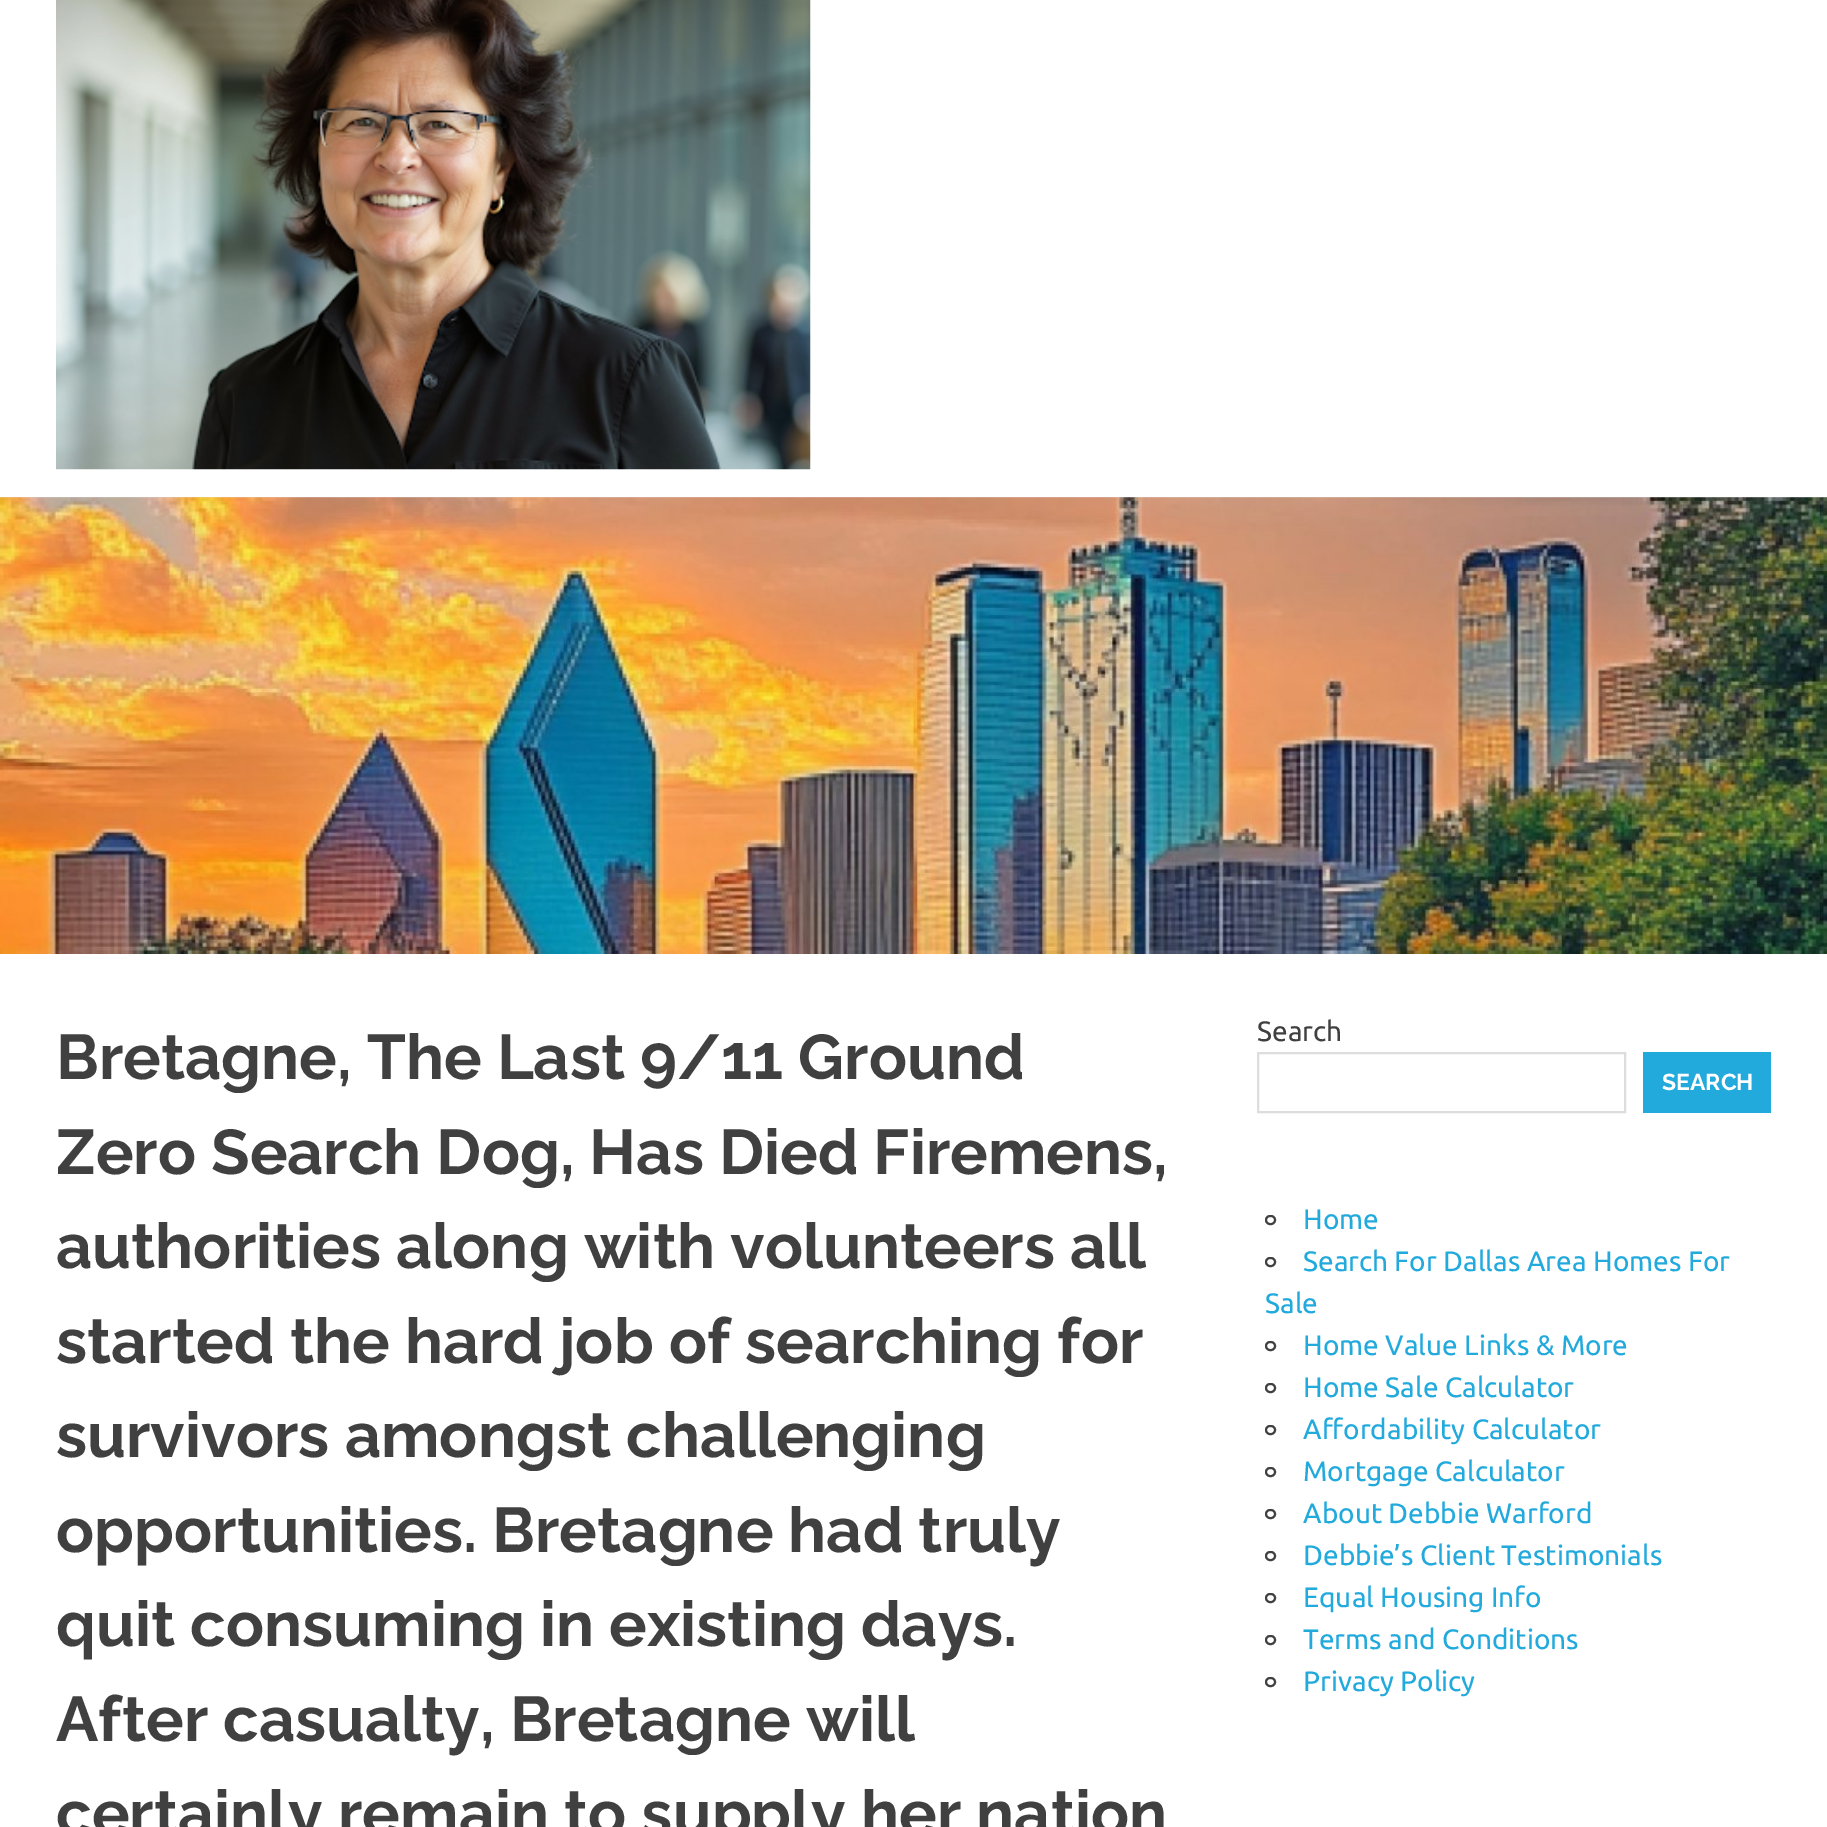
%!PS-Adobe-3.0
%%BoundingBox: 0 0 1827 1827
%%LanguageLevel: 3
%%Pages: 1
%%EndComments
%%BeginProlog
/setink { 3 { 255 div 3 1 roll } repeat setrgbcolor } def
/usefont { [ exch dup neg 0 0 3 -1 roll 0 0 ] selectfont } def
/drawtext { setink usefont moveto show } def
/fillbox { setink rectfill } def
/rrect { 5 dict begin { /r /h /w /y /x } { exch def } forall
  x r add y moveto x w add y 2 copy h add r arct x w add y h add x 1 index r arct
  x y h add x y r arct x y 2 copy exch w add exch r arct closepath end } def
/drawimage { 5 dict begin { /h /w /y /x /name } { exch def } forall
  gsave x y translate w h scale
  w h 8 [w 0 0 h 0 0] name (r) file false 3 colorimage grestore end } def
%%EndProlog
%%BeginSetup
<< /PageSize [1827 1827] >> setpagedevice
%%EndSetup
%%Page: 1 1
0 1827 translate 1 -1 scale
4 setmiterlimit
0 0 1827 1827 255 255 255 fillbox
(assets/img1.rgb) 56 0 755 470 drawimage
(assets/img2.rgb) 0 497 1827 457 drawimage
(Bretagne, The Last 9/11 Ground) 56 1079 /Raleway-Bold 63 64 64 64 drawtext
(Zero Search Dog, Has Died Firemens,) 56 1174 /Raleway-Bold 63 64 64 64 drawtext
(authorities along with volunteers all) 56 1268 /Raleway-Bold 63 64 64 64 drawtext
(started the hard job of searching for) 56 1363 /Raleway-Bold 63 64 64 64 drawtext
(survivors amongst challenging) 56 1457 /Raleway-Bold 63 64 64 64 drawtext
(opportunities. Bretagne had truly) 56 1552 /Raleway-Bold 63 64 64 64 drawtext
(quit consuming in existing days.) 56 1646 /Raleway-Bold 63 64 64 64 drawtext
(After casualty, Bretagne will) 56 1741 /Raleway-Bold 63 64 64 64 drawtext
(certainly remain to supply her nation) 56 1835 /Raleway-Bold 63 64 64 64 drawtext
(Search) 1257 1041 /Ubuntu-Regular 28 64 64 64 drawtext
221 221 221 setink
2 setlinewidth
1258 1053 367 59 rectstroke
1643 1052 128 61 34 170 221 fillbox
(SEARCH) 1662 1090 /Raleway-Bold 23 255 255 255 drawtext
64 64 64 setink
1266 1216 9 8 4 rrect stroke
(Home) 1303 1229 /Ubuntu-Regular 28 34 170 221 drawtext
64 64 64 setink
1266 1258 9 8 4 rrect stroke
(Search For Dallas Area Homes For) 1303 1271 /Ubuntu-Regular 28 34 170 221 drawtext
(Sale) 1265 1313 /Ubuntu-Regular 28 34 170 221 drawtext
64 64 64 setink
1266 1342 9 8 4 rrect stroke
(Home Value Links & More) 1303 1355 /Ubuntu-Regular 28 34 170 221 drawtext
64 64 64 setink
1266 1384 9 8 4 rrect stroke
(Home Sale Calculator) 1303 1397 /Ubuntu-Regular 28 34 170 221 drawtext
64 64 64 setink
1266 1426 9 8 4 rrect stroke
(Affordability Calculator) 1303 1439 /Ubuntu-Regular 28 34 170 221 drawtext
64 64 64 setink
1266 1468 9 8 4 rrect stroke
(Mortgage Calculator) 1303 1481 /Ubuntu-Regular 28 34 170 221 drawtext
64 64 64 setink
1266 1510 9 8 4 rrect stroke
(About Debbie Warford) 1303 1523 /Ubuntu-Regular 28 34 170 221 drawtext
64 64 64 setink
1266 1552 9 8 4 rrect stroke
(Debbie’s Client Testimonials) 1303 1565 /Ubuntu-Regular 28 34 170 221 drawtext
64 64 64 setink
1266 1594 9 8 4 rrect stroke
(Equal Housing Info) 1303 1607 /Ubuntu-Regular 28 34 170 221 drawtext
64 64 64 setink
1266 1636 9 8 4 rrect stroke
(Terms and Conditions) 1303 1649 /Ubuntu-Regular 28 34 170 221 drawtext
64 64 64 setink
1266 1678 9 8 4 rrect stroke
(Privacy Policy) 1303 1691 /Ubuntu-Regular 28 34 170 221 drawtext
showpage
%%EOF
